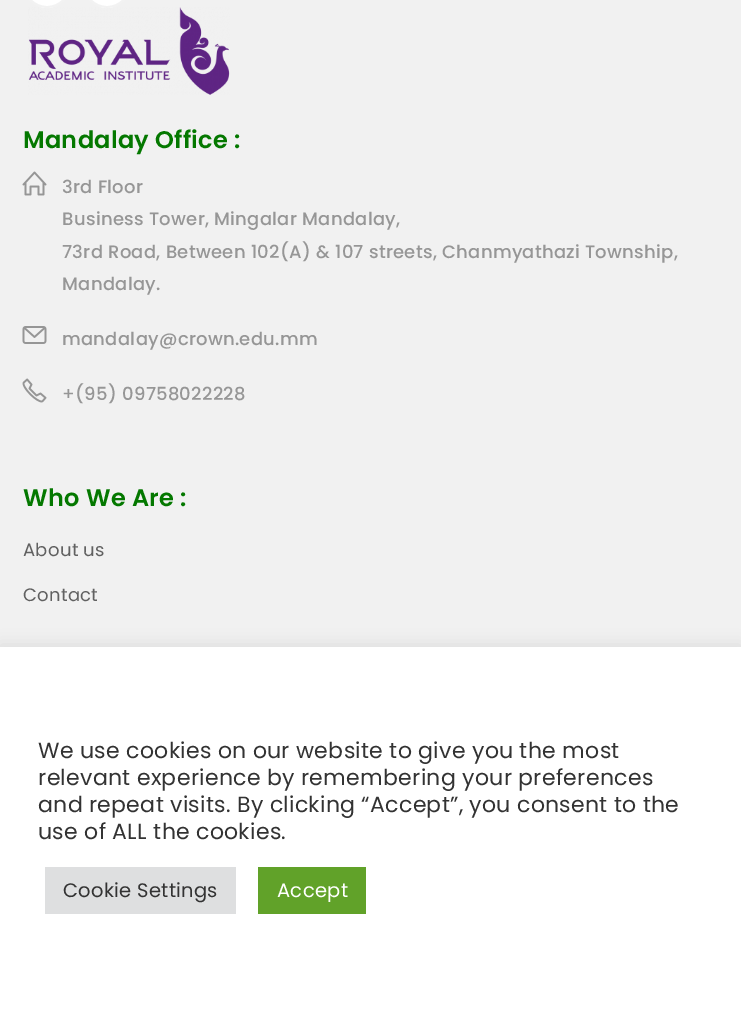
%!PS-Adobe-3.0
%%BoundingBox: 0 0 741 1010
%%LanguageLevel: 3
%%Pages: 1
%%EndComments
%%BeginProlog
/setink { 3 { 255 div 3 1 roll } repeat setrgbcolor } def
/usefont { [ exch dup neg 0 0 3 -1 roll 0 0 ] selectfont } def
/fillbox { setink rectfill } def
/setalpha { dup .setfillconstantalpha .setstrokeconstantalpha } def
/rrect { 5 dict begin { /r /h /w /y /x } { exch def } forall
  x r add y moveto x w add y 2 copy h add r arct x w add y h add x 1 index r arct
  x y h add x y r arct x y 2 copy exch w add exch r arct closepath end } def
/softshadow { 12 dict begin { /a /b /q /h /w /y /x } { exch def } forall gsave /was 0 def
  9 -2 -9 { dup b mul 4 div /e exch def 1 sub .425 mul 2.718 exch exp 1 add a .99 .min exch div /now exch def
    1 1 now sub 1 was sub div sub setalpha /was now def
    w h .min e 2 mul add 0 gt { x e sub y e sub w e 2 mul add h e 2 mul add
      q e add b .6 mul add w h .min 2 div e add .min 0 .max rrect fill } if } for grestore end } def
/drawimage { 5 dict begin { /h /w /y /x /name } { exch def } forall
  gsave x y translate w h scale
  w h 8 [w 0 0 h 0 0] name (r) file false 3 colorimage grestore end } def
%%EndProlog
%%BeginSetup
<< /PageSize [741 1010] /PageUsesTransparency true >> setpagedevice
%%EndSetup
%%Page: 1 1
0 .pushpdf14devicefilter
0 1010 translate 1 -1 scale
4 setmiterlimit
0 0 741 1010 241 241 241 fillbox
255 255 255 setink
24 -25 46 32 23 rrect gsave fill grestore
242 242 242 setink
2 setlinewidth
stroke
255 255 255 setink
84 -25 46 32 23 rrect gsave fill grestore
242 242 242 setink
stroke
(assets/img1.rgb) 28 7 202 88 drawimage
/Poppins-SemiBold 24 usefont
4 120 0 setink
23 148 moveto 0.3 0 (Mandalay Office :) ashow
(assets/img2.rgb) 22 171 25 25 drawimage
/Poppins-Medium 18 usefont
150 150 150 setink
62 193 moveto 0.3 0 (3rd Floor) ashow
62 225 moveto 0.3 0 (Business Tower, Mingalar Mandalay,) ashow
62 258 moveto 0.3 0 (73rd Road, Between 102\(A\) & 107 streets, Chanmyathazi Township,) ashow
62 290 moveto 0.3 0 (Mandalay.) ashow
(assets/img3.rgb) 22 326 25 18 drawimage
62 345 moveto 0.3 0 (mandalay@crown.edu.mm) ashow
(assets/img4.rgb) 22 378 25 25 drawimage
62 400 moveto 0.3 0 (+\(95\) 09758022228) ashow
/Poppins-SemiBold 24 usefont
4 120 0 setink
23 506 moveto 0.3 0 (Who We Are :) ashow
/Poppins-Regular 18 usefont
97 97 97 setink
23 556 moveto 0.3 0 (About us) ashow
23 601 moveto 0.3 0 (Contact) ashow
172 171 171 setink
0 645 741 365 0 7.5 0.3 softshadow
0 647 741 363 255 255 255 fillbox
/Poppins-Regular 22 usefont
51 51 51 setink
38 758 moveto 0.3 0 (We use cookies on our website to give you the most) ashow
38 785 moveto 0.3 0 (relevant experience by remembering your preferences) ashow
38 812 moveto 0.3 0 (and repeat visits. By clicking “Accept”, you consent to the) ashow
38 839 moveto 0.3 0 (use of ALL the cookies.) ashow
45 867 191 47 222 223 224 fillbox
/Poppins-Regular 19.5 usefont
51 51 51 setink
63 897 moveto 0.3 0 (Cookie Settings) ashow
258 867 108 47 97 162 41 fillbox
255 255 255 setink
277 897 moveto 0.3 0 (Accept) ashow
.poppdf14devicefilter showpage
%%EOF
